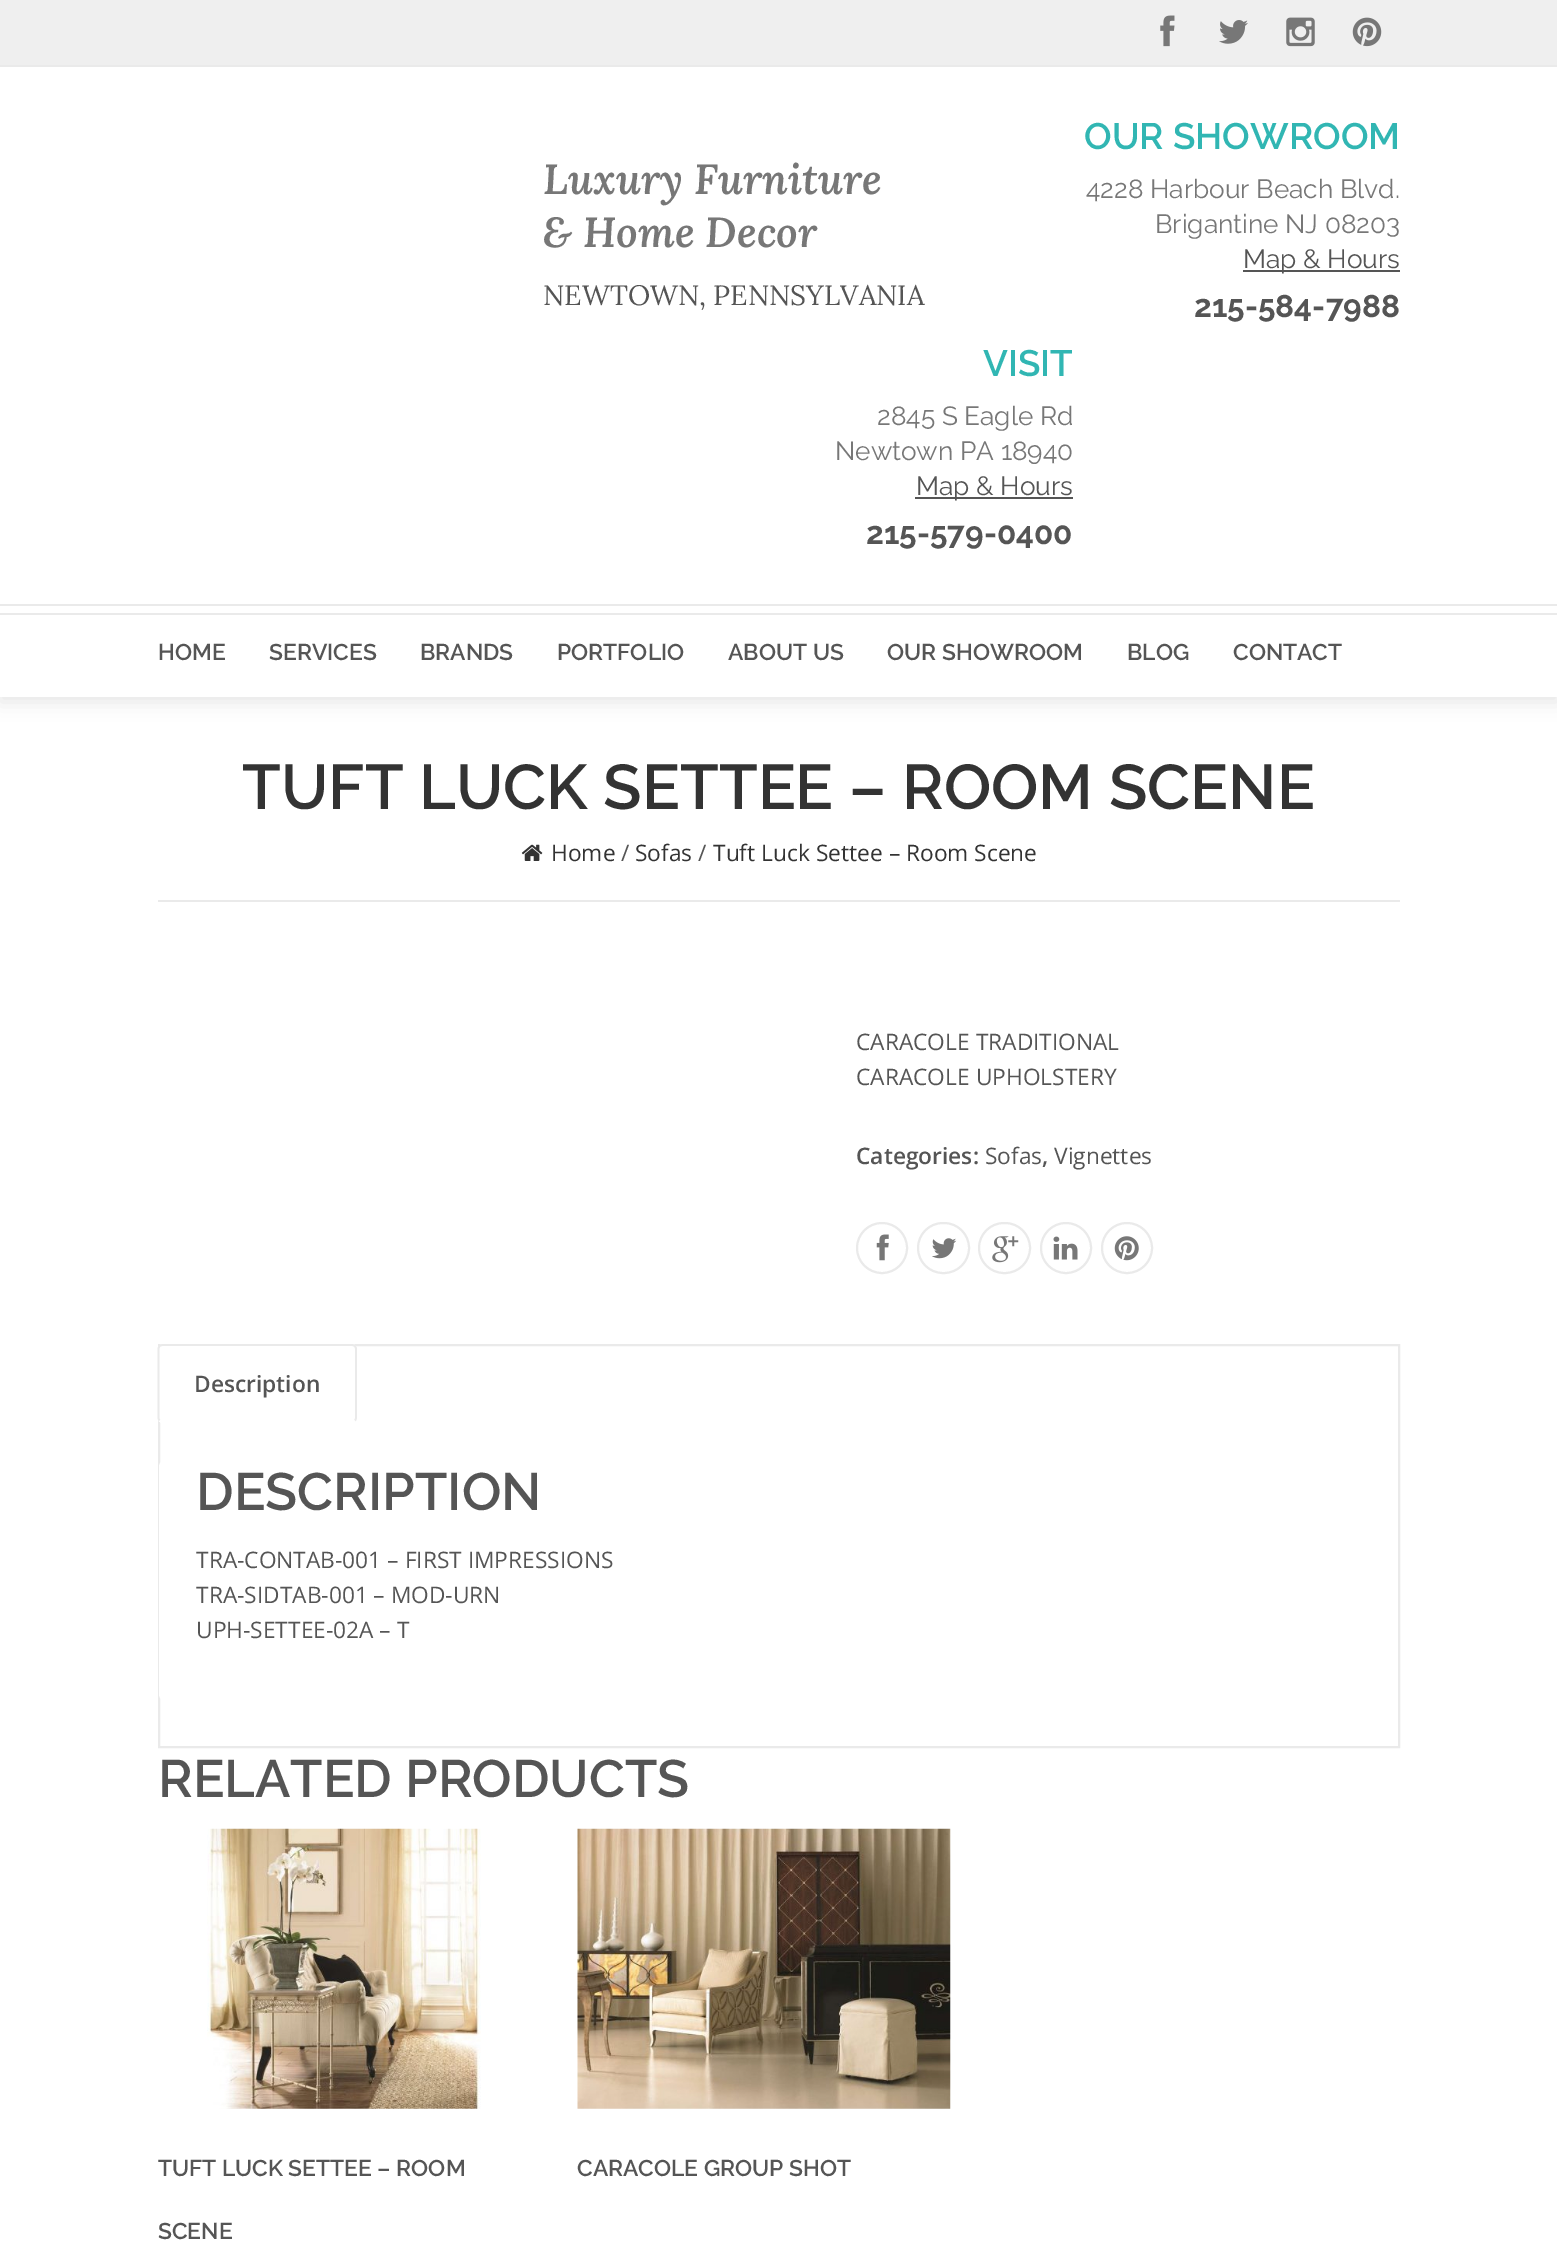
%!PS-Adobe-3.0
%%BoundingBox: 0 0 1557 2261
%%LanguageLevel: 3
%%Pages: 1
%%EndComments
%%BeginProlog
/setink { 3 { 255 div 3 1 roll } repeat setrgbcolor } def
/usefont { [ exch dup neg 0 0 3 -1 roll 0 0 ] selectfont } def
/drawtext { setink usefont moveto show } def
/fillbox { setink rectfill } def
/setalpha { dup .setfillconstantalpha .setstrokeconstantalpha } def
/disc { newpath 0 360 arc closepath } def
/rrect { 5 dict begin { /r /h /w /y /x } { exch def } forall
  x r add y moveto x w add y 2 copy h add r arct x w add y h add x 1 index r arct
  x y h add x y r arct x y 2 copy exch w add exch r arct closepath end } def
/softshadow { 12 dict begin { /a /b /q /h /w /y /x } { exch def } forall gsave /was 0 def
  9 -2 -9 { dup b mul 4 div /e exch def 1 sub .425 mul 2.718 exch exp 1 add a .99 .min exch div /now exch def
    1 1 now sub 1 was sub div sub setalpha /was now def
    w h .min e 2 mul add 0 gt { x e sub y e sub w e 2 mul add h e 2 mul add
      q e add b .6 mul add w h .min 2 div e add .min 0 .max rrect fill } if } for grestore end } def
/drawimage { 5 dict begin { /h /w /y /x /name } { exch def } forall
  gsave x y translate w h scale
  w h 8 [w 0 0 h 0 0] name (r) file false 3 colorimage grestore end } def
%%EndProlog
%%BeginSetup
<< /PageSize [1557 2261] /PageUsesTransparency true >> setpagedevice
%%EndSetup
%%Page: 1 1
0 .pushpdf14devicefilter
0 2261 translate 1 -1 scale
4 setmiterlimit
0 0 1557 2261 255 255 255 fillbox
gsave
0 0 moveto 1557 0 lineto 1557 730 lineto 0 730 lineto closepath 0 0 moveto 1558 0 lineto 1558 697 lineto 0 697 lineto closepath eoclip newpath
0 0 0 setink
0 5 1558 697 0 9 0.1 softshadow
grestore
0 0 1557 65 239 239 239 fillbox
0 65 1557 2 234 234 234 fillbox
(assets/img1.rgb) 1160 15 15 32 drawimage
(assets/img2.rgb) 1219 20 29 24 drawimage
(assets/img3.rgb) 1286 17 29 30 drawimage
(assets/img4.rgb) 1352 17 30 30 drawimage
(Luxury Furniture) 543 194 /Lora-SemiBoldItalic 42 119 119 119 drawtext
(& Home Decor) 543 247 /Lora-SemiBoldItalic 42 119 119 119 drawtext
(NEWTOWN, PENNSYLVANIA) 543 305 /Lora-Regular 28 85 85 85 drawtext
(OUR SHOWROOM) 1084 149 /Raleway-SemiBold 36.75 49 182 179 drawtext
(4228 Harbour Beach Blvd.) 1086 198 /Raleway-Regular 26.25 119 119 119 drawtext
(Brigantine NJ 08203) 1155 233 /Raleway-Regular 26.25 119 119 119 drawtext
1243 270 157 2 85 85 85 fillbox
(Map & Hours) 1243 268 /Raleway-Regular 26.25 85 85 85 drawtext
(215-584-7988) 1194 317 /Raleway-Bold 31.5 85 85 85 drawtext
(VISIT) 983 376 /Raleway-SemiBold 36.75 49 182 179 drawtext
(2845 S Eagle Rd) 877 425 /Raleway-Regular 26.25 119 119 119 drawtext
(Newtown PA 18940) 835 460 /Raleway-Regular 26.25 119 119 119 drawtext
915 497 158 2 85 85 85 fillbox
(Map & Hours) 916 495 /Raleway-Regular 26.25 85 85 85 drawtext
(215-579-0400) 866 544 /Raleway-Bold 31.5 85 85 85 drawtext
0 604 1557 2 234 234 234 fillbox
0 613 1557 2 234 234 234 fillbox
(HOME) 158 660 /Raleway-SemiBold 22.75 85 85 85 drawtext
(SERVICES) 269 660 /Raleway-SemiBold 22.75 85 85 85 drawtext
(BRANDS) 420 660 /Raleway-SemiBold 22.75 85 85 85 drawtext
(PORTFOLIO) 557 660 /Raleway-SemiBold 22.75 85 85 85 drawtext
(ABOUT US) 728 660 /Raleway-SemiBold 22.75 85 85 85 drawtext
(OUR SHOWROOM) 887 660 /Raleway-SemiBold 22.75 85 85 85 drawtext
(BLOG) 1127 660 /Raleway-SemiBold 22.75 85 85 85 drawtext
(CONTACT) 1233 660 /Raleway-SemiBold 22.75 85 85 85 drawtext
158 900 1242 2 234 234 234 fillbox
(TUFT LUCK SETTEE – ROOM SCENE) 242 809 /Raleway-SemiBold 63 51 51 51 drawtext
(assets/img5.rgb) 521 844 22 17 drawimage
(Home) 551 861 /OpenSans-Regular 22.75 51 51 51 drawtext
(/) 621 861 /OpenSans-Regular 22.75 85 85 85 drawtext
(Sofas) 635 861 /OpenSans-Regular 22.75 51 51 51 drawtext
(/) 698 861 /OpenSans-Regular 22.75 85 85 85 drawtext
(Tuft Luck Settee – Room Scene) 713 861 /OpenSans-Regular 22.75 51 51 51 drawtext
(CARACOLE TRADITIONAL) 856 1050 /OpenSans-Regular 22.75 85 85 85 drawtext
(CARACOLE UPHOLSTERY) 856 1085 /OpenSans-Regular 22.75 85 85 85 drawtext
(Categories:) 856 1164 /OpenSans-SemiBold 22.75 85 85 85 drawtext
(Sofas) 985 1164 /OpenSans-Regular 22.75 85 85 85 drawtext
(,) 1042 1164 /OpenSans-SemiBold 22.75 85 85 85 drawtext
(Vignettes) 1054 1164 /OpenSans-Regular 22.75 85 85 85 drawtext
234 234 234 setink
2 setlinewidth
882 1248 25 disc stroke
(assets/img6.rgb) 876 1234 13 27 drawimage
918 1223 51 50 25 rrect stroke
(assets/img7.rgb) 932 1238 25 21 drawimage
979 1223 51 50 25 rrect stroke
(assets/img8.rgb) 992 1236 27 27 drawimage
1066 1248 25 disc stroke
(assets/img9.rgb) 1053 1236 25 24 drawimage
1127 1248 25 disc stroke
(assets/img10.rgb) 1114 1236 25 25 drawimage
159 1345 1240 402 rectstroke
255 255 255 setink
158 1344 199 79 5 rrect fill
1.8 setlinewidth
355 1420.5 moveto 354 1421.5 353 1422 352 1422 curveto 163 1422 lineto 161.5 1422 160.5 1421.5 159.5 1420.5 curveto stroke
234 234 234 setink
159.5 1420.5 moveto 159 1420 158.5 1418.5 158.5 1417.5 curveto 158.5 1349 lineto 158.5 1348 159 1347 159.5 1346 curveto 160.5 1345.5 161.5 1345 163 1345 curveto 352 1345 lineto 353 1345 354 1345.5 355 1346 curveto 355.5 1347 356 1348 356 1349 curveto 356 1417.5 lineto 356 1418.5 355.5 1420 355 1420.5 curveto stroke
(Description) 194 1392 /OpenSans-SemiBold 22.75 85 85 85 drawtext
255 255 255 setink
159 1460 1239 241 7 rrect fill
(DESCRIPTION) 196 1510 /Raleway-SemiBold 52.5 85 85 85 drawtext
(TRA-CONTAB-001 – FIRST IMPRESSIONS) 196 1568 /OpenSans-Regular 22.75 85 85 85 drawtext
(TRA-SIDTAB-001 – MOD-URN) 196 1603 /OpenSans-Regular 22.75 85 85 85 drawtext
(UPH-SETTEE-02A – T) 196 1638 /OpenSans-Regular 22.75 85 85 85 drawtext
(RELATED PRODUCTS) 158 1797 /Raleway-SemiBold 52.5 85 85 85 drawtext
(assets/img11.rgb) 207 1828 274 281 drawimage
(TUFT LUCK SETTEE – ROOM) 158 2176 /Raleway-SemiBold 22.75 85 85 85 drawtext
(SCENE) 158 2239 /Raleway-SemiBold 22.75 85 85 85 drawtext
(assets/img12.rgb) 577 1828 374 281 drawimage
(CARACOLE GROUP SHOT) 577 2176 /Raleway-SemiBold 22.75 85 85 85 drawtext
.poppdf14devicefilter showpage
%%EOF
